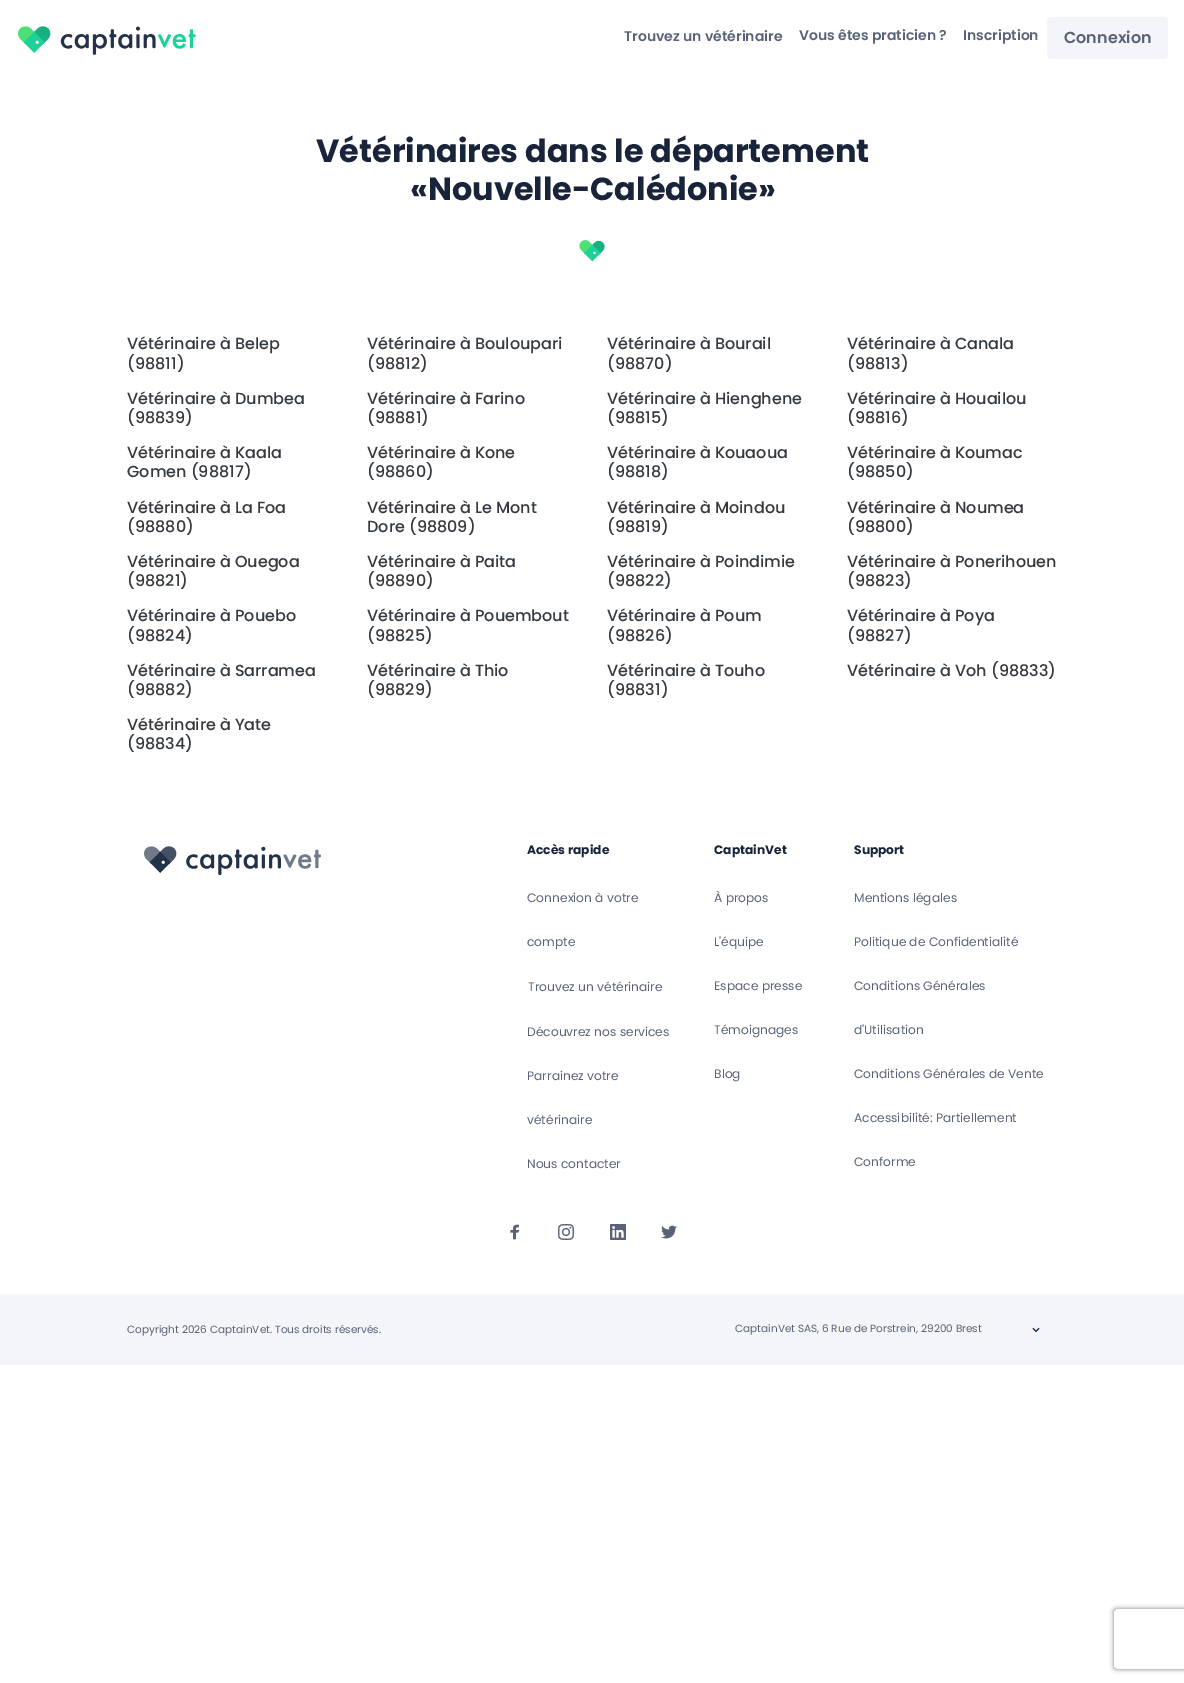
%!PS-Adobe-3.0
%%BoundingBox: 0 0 1184 1683
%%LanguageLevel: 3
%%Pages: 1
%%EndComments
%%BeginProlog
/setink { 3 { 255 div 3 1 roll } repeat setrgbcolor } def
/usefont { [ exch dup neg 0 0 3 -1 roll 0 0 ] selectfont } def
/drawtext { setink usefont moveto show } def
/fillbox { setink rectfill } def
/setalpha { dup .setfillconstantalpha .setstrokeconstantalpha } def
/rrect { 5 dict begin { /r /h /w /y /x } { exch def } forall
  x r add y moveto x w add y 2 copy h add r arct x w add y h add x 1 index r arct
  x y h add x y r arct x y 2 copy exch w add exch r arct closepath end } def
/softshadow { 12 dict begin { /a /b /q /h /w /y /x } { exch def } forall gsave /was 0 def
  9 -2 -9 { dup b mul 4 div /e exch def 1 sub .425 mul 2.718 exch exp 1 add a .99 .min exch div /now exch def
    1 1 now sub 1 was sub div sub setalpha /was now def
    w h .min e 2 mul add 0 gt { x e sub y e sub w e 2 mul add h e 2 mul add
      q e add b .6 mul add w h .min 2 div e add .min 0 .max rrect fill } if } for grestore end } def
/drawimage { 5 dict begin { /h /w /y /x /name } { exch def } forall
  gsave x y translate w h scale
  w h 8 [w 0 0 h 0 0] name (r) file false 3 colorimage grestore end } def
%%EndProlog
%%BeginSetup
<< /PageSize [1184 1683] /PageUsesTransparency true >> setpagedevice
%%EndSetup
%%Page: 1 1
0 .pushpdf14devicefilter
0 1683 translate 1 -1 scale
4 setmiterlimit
0 0 1184 1683 255 255 255 fillbox
(assets/img1.rgb) 18 26 178 29 drawimage
(Trouvez un vétérinaire) 624 41 /Poppins-SemiBold 14 89 98 120 drawtext
(Vous êtes praticien ?) 799 40 /Poppins-SemiBold 14 89 98 120 drawtext
(Inscription) 963 40 /Poppins-SemiBold 14 89 98 120 drawtext
244 245 248 setink
1047 17 121 42 4 rrect fill
(Connexion) 1064 43 /Poppins-SemiBold 16 89 98 120 drawtext
(Vétérinaires dans le département) 316 162 /Poppins-Bold 31.9 25 36 59 drawtext
(«Nouvelle-Calédonie») 410 200 /Poppins-Bold 31.9 25 36 59 drawtext
(assets/img2.rgb) 579 240 26 22 drawimage
(Vétérinaire à Belep) 127 349 /Poppins-Medium 16 52 58 64 drawtext
(\(98811\)) 127 369 /Poppins-Medium 16 52 58 64 drawtext
(Vétérinaire à Bouloupari) 367 349 /Poppins-Medium 16 52 58 64 drawtext
(\(98812\)) 367 369 /Poppins-Medium 16 52 58 64 drawtext
(Vétérinaire à Bourail) 607 349 /Poppins-Medium 16 52 58 64 drawtext
(\(98870\)) 607 369 /Poppins-Medium 16 52 58 64 drawtext
(Vétérinaire à Canala) 847 349 /Poppins-Medium 16 52 58 64 drawtext
(\(98813\)) 847 369 /Poppins-Medium 16 52 58 64 drawtext
(Vétérinaire à Dumbea) 127 404 /Poppins-Medium 16 52 58 64 drawtext
(\(98839\)) 127 423 /Poppins-Medium 16 52 58 64 drawtext
(Vétérinaire à Farino) 367 404 /Poppins-Medium 16 52 58 64 drawtext
(\(98881\)) 367 423 /Poppins-Medium 16 52 58 64 drawtext
(Vétérinaire à Hienghene) 607 404 /Poppins-Medium 16 52 58 64 drawtext
(\(98815\)) 607 423 /Poppins-Medium 16 52 58 64 drawtext
(Vétérinaire à Houailou) 847 404 /Poppins-Medium 16 52 58 64 drawtext
(\(98816\)) 847 423 /Poppins-Medium 16 52 58 64 drawtext
(Vétérinaire à Kaala) 127 458 /Poppins-Medium 16 52 58 64 drawtext
(Gomen \(98817\)) 127 477 /Poppins-Medium 16 52 58 64 drawtext
(Vétérinaire à Kone) 367 458 /Poppins-Medium 16 52 58 64 drawtext
(\(98860\)) 367 477 /Poppins-Medium 16 52 58 64 drawtext
(Vétérinaire à Kouaoua) 607 458 /Poppins-Medium 16 52 58 64 drawtext
(\(98818\)) 607 477 /Poppins-Medium 16 52 58 64 drawtext
(Vétérinaire à Koumac) 847 458 /Poppins-Medium 16 52 58 64 drawtext
(\(98850\)) 847 477 /Poppins-Medium 16 52 58 64 drawtext
(Vétérinaire à La Foa) 127 513 /Poppins-Medium 16 52 58 64 drawtext
(\(98880\)) 127 532 /Poppins-Medium 16 52 58 64 drawtext
(Vétérinaire à Le Mont) 367 513 /Poppins-Medium 16 52 58 64 drawtext
(Dore \(98809\)) 367 532 /Poppins-Medium 16 52 58 64 drawtext
(Vétérinaire à Moindou) 607 513 /Poppins-Medium 16 52 58 64 drawtext
(\(98819\)) 607 532 /Poppins-Medium 16 52 58 64 drawtext
(Vétérinaire à Noumea) 847 513 /Poppins-Medium 16 52 58 64 drawtext
(\(98800\)) 847 532 /Poppins-Medium 16 52 58 64 drawtext
(Vétérinaire à Ouegoa) 127 567 /Poppins-Medium 16 52 58 64 drawtext
(\(98821\)) 127 586 /Poppins-Medium 16 52 58 64 drawtext
(Vétérinaire à Paita) 367 567 /Poppins-Medium 16 52 58 64 drawtext
(\(98890\)) 367 586 /Poppins-Medium 16 52 58 64 drawtext
(Vétérinaire à Poindimie) 607 567 /Poppins-Medium 16 52 58 64 drawtext
(\(98822\)) 607 586 /Poppins-Medium 16 52 58 64 drawtext
(Vétérinaire à Ponerihouen) 847 567 /Poppins-Medium 16 52 58 64 drawtext
(\(98823\)) 847 586 /Poppins-Medium 16 52 58 64 drawtext
(Vétérinaire à Pouebo) 127 621 /Poppins-Medium 16 52 58 64 drawtext
(\(98824\)) 127 641 /Poppins-Medium 16 52 58 64 drawtext
(Vétérinaire à Pouembout) 367 621 /Poppins-Medium 16 52 58 64 drawtext
(\(98825\)) 367 641 /Poppins-Medium 16 52 58 64 drawtext
(Vétérinaire à Poum) 607 621 /Poppins-Medium 16 52 58 64 drawtext
(\(98826\)) 607 641 /Poppins-Medium 16 52 58 64 drawtext
(Vétérinaire à Poya) 847 621 /Poppins-Medium 16 52 58 64 drawtext
(\(98827\)) 847 641 /Poppins-Medium 16 52 58 64 drawtext
(Vétérinaire à Sarramea) 127 676 /Poppins-Medium 16 52 58 64 drawtext
(\(98882\)) 127 695 /Poppins-Medium 16 52 58 64 drawtext
(Vétérinaire à Thio) 367 676 /Poppins-Medium 16 52 58 64 drawtext
(\(98829\)) 367 695 /Poppins-Medium 16 52 58 64 drawtext
(Vétérinaire à Touho) 607 676 /Poppins-Medium 16 52 58 64 drawtext
(\(98831\)) 607 695 /Poppins-Medium 16 52 58 64 drawtext
(Vétérinaire à Voh \(98833\)) 847 676 /Poppins-Medium 16 52 58 64 drawtext
(Vétérinaire à Yate) 127 730 /Poppins-Medium 16 52 58 64 drawtext
(\(98834\)) 127 749 /Poppins-Medium 16 52 58 64 drawtext
(assets/img3.rgb) 144 846 177 29 drawimage
(Accès rapide) 527 854 /Poppins-Bold 12.25 25 36 59 drawtext
(Connexion à votre) 527 902 /Poppins-Regular 12.25 89 98 120 drawtext
(compte) 527 946 /Poppins-Regular 12.25 89 98 120 drawtext
(Trouvez un vétérinaire) 528 991 /Poppins-Regular 12.25 89 98 120 drawtext
(Découvrez nos services) 527 1036 /Poppins-Regular 12.25 89 98 120 drawtext
(Parrainez votre) 527 1080 /Poppins-Regular 12.25 89 98 120 drawtext
(vétérinaire) 527 1124 /Poppins-Regular 12.25 89 98 120 drawtext
(Nous contacter) 527 1168 /Poppins-Regular 12.25 89 98 120 drawtext
(CaptainVet) 714 854 /Poppins-Bold 12.25 25 36 59 drawtext
(À propos) 714 902 /Poppins-Regular 12.25 89 98 120 drawtext
(L'équipe) 714 946 /Poppins-Regular 12.25 89 98 120 drawtext
(Espace presse) 714 990 /Poppins-Regular 12.25 89 98 120 drawtext
(Témoignages) 714 1034 /Poppins-Regular 12.25 89 98 120 drawtext
(Blog) 714 1078 /Poppins-Regular 12.25 89 98 120 drawtext
(Support) 854 854 /Poppins-Bold 12.25 25 36 59 drawtext
(Mentions légales) 854 902 /Poppins-Regular 12.25 89 98 120 drawtext
(Politique de Confidentialité) 854 946 /Poppins-Regular 12.25 89 98 120 drawtext
(Conditions Générales) 854 990 /Poppins-Regular 12.25 89 98 120 drawtext
(d'Utilisation) 854 1034 /Poppins-Regular 12.25 89 98 120 drawtext
(Conditions Générales de Vente) 854 1078 /Poppins-Regular 12.25 89 98 120 drawtext
(Accessibilité: Partiellement) 854 1122 /Poppins-Regular 12.25 89 98 120 drawtext
(Conforme) 854 1166 /Poppins-Regular 12.25 89 98 120 drawtext
(assets/img4.rgb) 510 1224 10 16 drawimage
(assets/img5.rgb) 558 1224 16 16 drawimage
(assets/img6.rgb) 610 1224 16 16 drawimage
(assets/img7.rgb) 661 1225 16 14 drawimage
0 1294 1184 71 244 245 248 fillbox
(Copyright 2026 CaptainVet. Tous droits réservés.) 127 1333 /Poppins-Regular 10.5 89 98 120 drawtext
(CaptainVet SAS, 6 Rue de Porstrein, 29200 Brest) 735 1332 /Poppins-Regular 10.5 89 98 120 drawtext
(assets/img8.rgb) 1032 1327 8 6 drawimage
gsave
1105 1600 moveto 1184 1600 lineto 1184 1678 lineto 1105 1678 lineto closepath 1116 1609 moveto 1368 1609 lineto 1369 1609 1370 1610 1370 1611 curveto 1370 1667 lineto 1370 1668 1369 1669 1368 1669 curveto 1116 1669 lineto 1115 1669 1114 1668 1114 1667 curveto 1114 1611 lineto 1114 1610 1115 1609 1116 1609 curveto closepath eoclip newpath
128 128 128 setink
1114 1609 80 60 2 2.5 1 softshadow
grestore
.poppdf14devicefilter showpage
%%EOF
